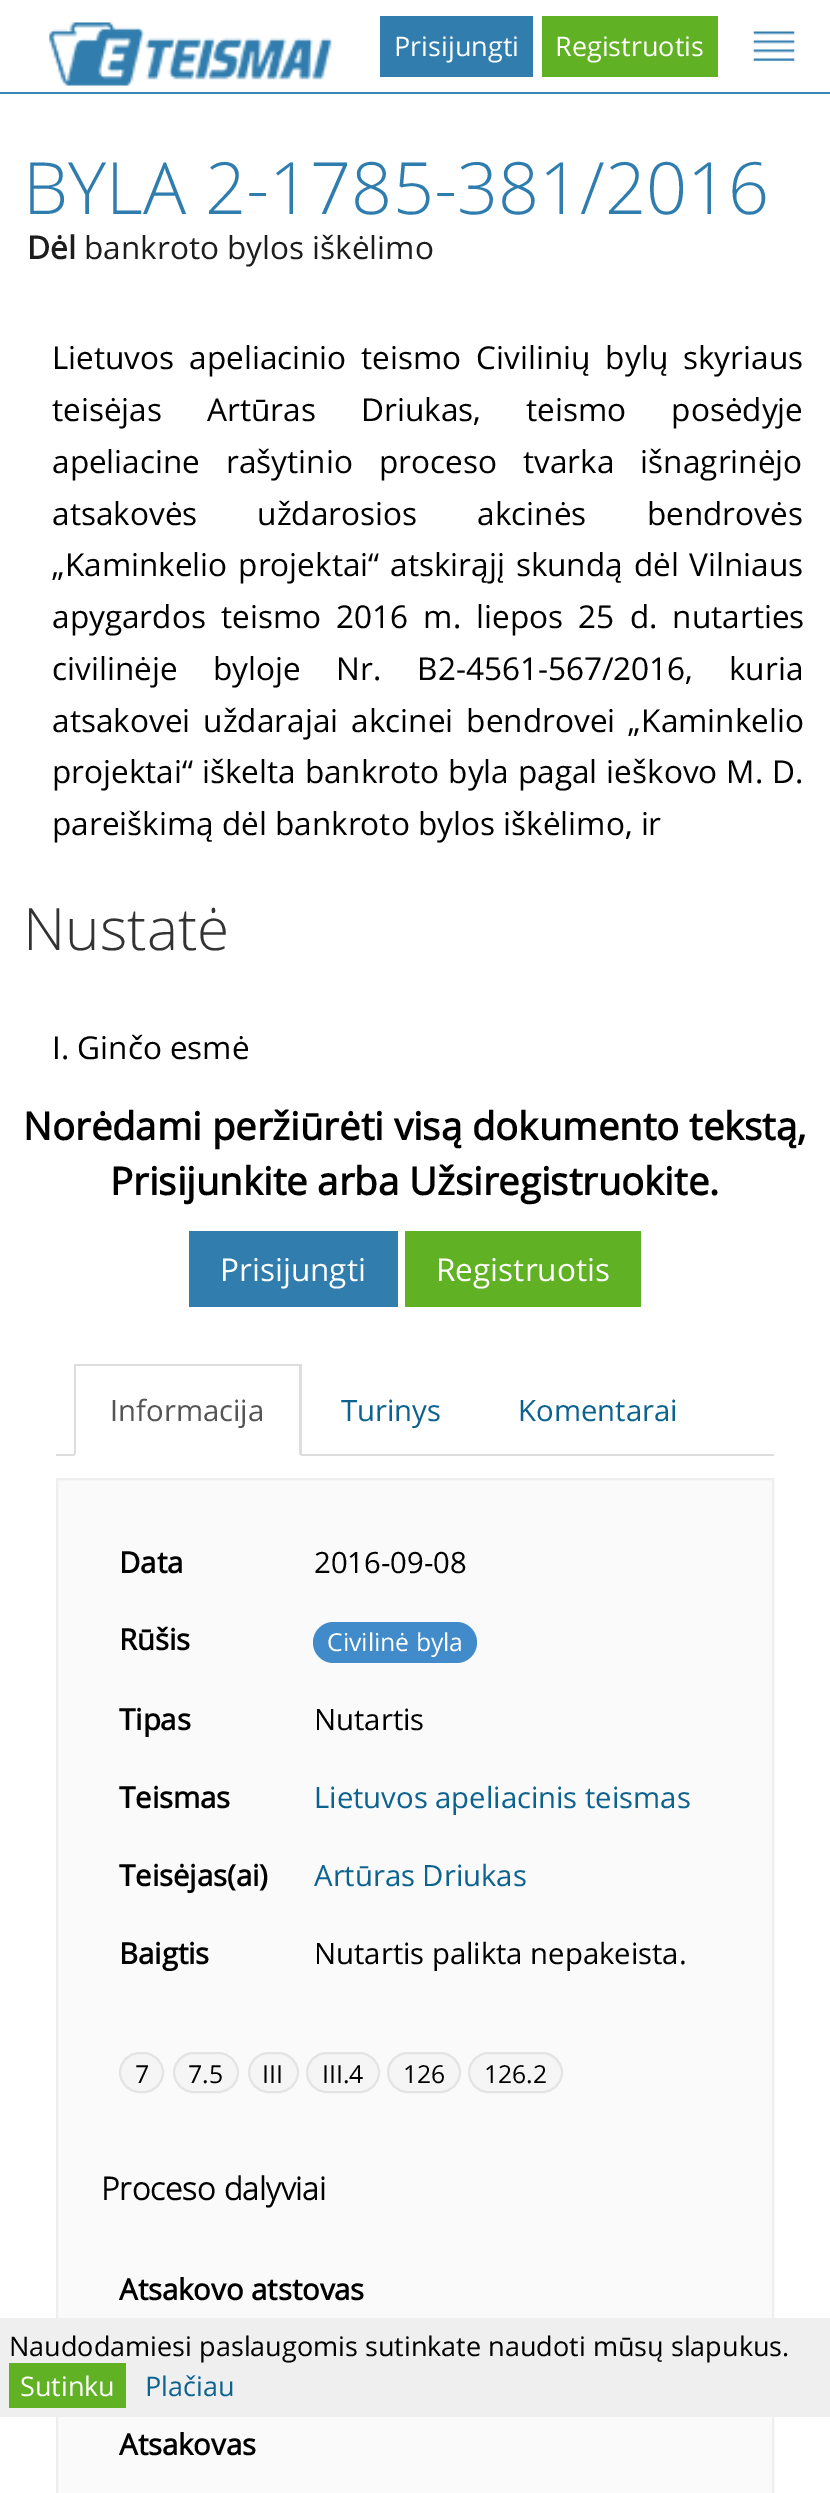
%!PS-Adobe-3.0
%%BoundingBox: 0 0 830 2493
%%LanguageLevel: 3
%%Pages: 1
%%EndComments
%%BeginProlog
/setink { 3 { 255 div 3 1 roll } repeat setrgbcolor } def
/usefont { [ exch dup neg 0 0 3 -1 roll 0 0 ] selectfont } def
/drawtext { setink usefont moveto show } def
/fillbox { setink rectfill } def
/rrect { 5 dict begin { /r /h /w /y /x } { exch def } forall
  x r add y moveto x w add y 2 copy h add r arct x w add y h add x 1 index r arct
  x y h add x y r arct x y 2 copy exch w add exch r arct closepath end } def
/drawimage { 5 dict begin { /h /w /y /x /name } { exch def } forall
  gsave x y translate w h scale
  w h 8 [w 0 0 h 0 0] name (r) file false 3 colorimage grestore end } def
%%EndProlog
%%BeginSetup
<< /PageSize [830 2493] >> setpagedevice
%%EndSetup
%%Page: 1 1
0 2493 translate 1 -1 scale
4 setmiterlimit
0 0 830 2493 255 255 255 fillbox
0 92 830 2 60 134 184 fillbox
(assets/img1.rgb) 49 22 283 64 drawimage
380 16 153 61 48 125 174 fillbox
(Prisijungti) 394 56 /OpenSans-Regular 27 255 255 255 drawtext
542 16 176 61 96 177 35 fillbox
(Registruotis) 555 56 /OpenSans-Regular 27 255 255 255 drawtext
(assets/img2.rgb) 753 31 42 30 drawimage
(BYLA 2-1785-381/2016) 23 214 /OpenSans-Light 72 47 125 174 drawtext
(Dėl) 27 259 /OpenSans-Bold 31.5 29 29 29 drawtext
(bankroto bylos iškėlimo) 84 259 /OpenSans-Regular 31.5 29 29 29 drawtext
0 0 0 setink
52 369 moveto 6.75 0 32 (Lietuvos apeliacinio teismo Civilinių bylų skyriaus) widthshow
52 421 moveto 37 0 32 (teisėjas Artūras Driukas, teismo posėdyje) widthshow
52 473 moveto 18 0 32 (apeliacine rašytinio proceso tvarka išnagrinėjo) widthshow
52 525 moveto 52 0 32 (atsakovės uždarosios akcinės bendrovės) widthshow
52 576 moveto 2.75 0 32 („Kaminkelio projektai“ atskirąjį skundą dėl Vilniaus) widthshow
52 628 moveto 7 0 32 (apygardos teismo 2016 m. liepos 25 d. nutarties) widthshow
52 680 moveto 27.5 0 32 (civilinėje byloje Nr. B2-4561-567/2016, kuria) widthshow
52 732 moveto 5 0 32 (atsakovei uždarajai akcinei bendrovei „Kaminkelio) widthshow
52 783 moveto 0.75 0 32 (projektai“ iškelta bankroto byla pagal ieškovo M. D.) widthshow
(pareiškimą dėl bankroto bylos iškėlimo, ir) 52 835 /OpenSans-Regular 31.5 0 0 0 drawtext
(Nustatė) 23 950 /OpenSans-Light 58.5 51 51 51 drawtext
(I. Ginčo esmė) 52 1059 /OpenSans-Regular 31.5 0 0 0 drawtext
(Norėdami peržiūrėti visą dokumento tekstą,) 23 1140 /OpenSans-Bold 38.25 0 0 0 drawtext
(Prisijunkite arba Užsiregistruokite.) 110 1195 /OpenSans-Bold 38.25 0 0 0 drawtext
189 1231 209 76 48 125 174 fillbox
(Prisijungti) 220 1281 /OpenSans-Regular 31.5 255 255 255 drawtext
405 1231 236 76 96 177 35 fillbox
(Registruotis) 436 1281 /OpenSans-Regular 31.5 255 255 255 drawtext
56 1454 718 2 221 221 221 fillbox
74 1454 228 2 255 255 255 fillbox
74 1364 228 2 221 221 221 fillbox
302 1364 moveto 302 1456 lineto 299 1454 lineto 299 1366 lineto closepath fill
74 1456 moveto 74 1364 lineto 76 1366 lineto 76 1454 lineto closepath fill
(Informacija) 110 1421 /OpenSans-Regular 29.25 85 85 85 drawtext
(Turinys) 341 1421 /OpenSans-Regular 29.25 13 99 143 drawtext
(Komentarai) 518 1421 /OpenSans-Regular 29.25 13 99 143 drawtext
250 250 250 setink
57 1479 moveto 773 1479 lineto 773 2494 lineto 57 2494 lineto closepath gsave fill grestore
238 238 238 setink
2 setlinewidth
stroke
(Data) 119 1573 /OpenSans-Bold 29.25 0 0 0 drawtext
(2016-09-08) 314 1573 /OpenSans-Regular 29.25 0 0 0 drawtext
(Rūšis) 119 1650 /OpenSans-Bold 29.25 0 0 0 drawtext
66 139 202 setink
313 1622 164 41 20.5 rrect fill
(Civilinė byla) 327 1651 /OpenSans-Regular 24.75 255 255 255 drawtext
(Tipas) 119 1730 /OpenSans-Bold 29.25 0 0 0 drawtext
(Nutartis) 314 1730 /OpenSans-Regular 29.25 0 0 0 drawtext
(Teismas) 119 1808 /OpenSans-Bold 29.25 0 0 0 drawtext
(Lietuvos apeliacinis teismas) 314 1808 /OpenSans-Regular 29.25 13 99 143 drawtext
(Teisėjas\(ai\)) 119 1886 /OpenSans-Bold 29.25 0 0 0 drawtext
(Artūras Driukas) 314 1886 /OpenSans-Regular 29.25 13 99 143 drawtext
(Baigtis) 119 1964 /OpenSans-Bold 29.25 0 0 0 drawtext
(Nutartis palikta nepakeista.) 314 1964 /OpenSans-Regular 29.25 0 0 0 drawtext
245 245 245 setink
120 2053 43 39 19.5 rrect gsave fill grestore
228 228 228 setink
stroke
(7) 135 2083 /OpenSans-Regular 24.75 0 0 0 drawtext
245 245 245 setink
174 2053 64 39 19.5 rrect gsave fill grestore
228 228 228 setink
stroke
(7.5) 188 2083 /OpenSans-Regular 24.75 0 0 0 drawtext
245 245 245 setink
249 2053 49 39 19.5 rrect gsave fill grestore
228 228 228 setink
stroke
(III) 262 2083 /OpenSans-Regular 24.75 0 0 0 drawtext
245 245 245 setink
307 2053 72 39 19.5 rrect gsave fill grestore
228 228 228 setink
stroke
(III.4) 322 2083 /OpenSans-Regular 24.75 0 0 0 drawtext
245 245 245 setink
388 2053 72 39 19.5 rrect gsave fill grestore
228 228 228 setink
stroke
(126) 403 2083 /OpenSans-Regular 24.75 0 0 0 drawtext
245 245 245 setink
469 2053 93 39 19.5 rrect gsave fill grestore
228 228 228 setink
stroke
(126.2) 484 2083 /OpenSans-Regular 24.75 0 0 0 drawtext
(Proceso dalyviai) 101 2200 /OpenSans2-Bold 31.5 0 0 0 drawtext
(Atsakovo atstovas) 119 2300 /OpenSans-Bold 29.25 0 0 0 drawtext
(Atsakovas) 119 2455 /OpenSans-Bold 29.25 0 0 0 drawtext
0 2318 830 99 239 239 239 fillbox
(Naudodamiesi paslaugomis sutinkate naudoti mūsų slapukus.) 9 2356 /OpenSans-Regular 27 0 0 0 drawtext
9 2363 117 45 96 177 35 fillbox
(Sutinku) 20 2396 /OpenSans-Regular 27 255 255 255 drawtext
(Plačiau) 145 2396 /OpenSans-Regular 27 13 99 143 drawtext
showpage
%%EOF
